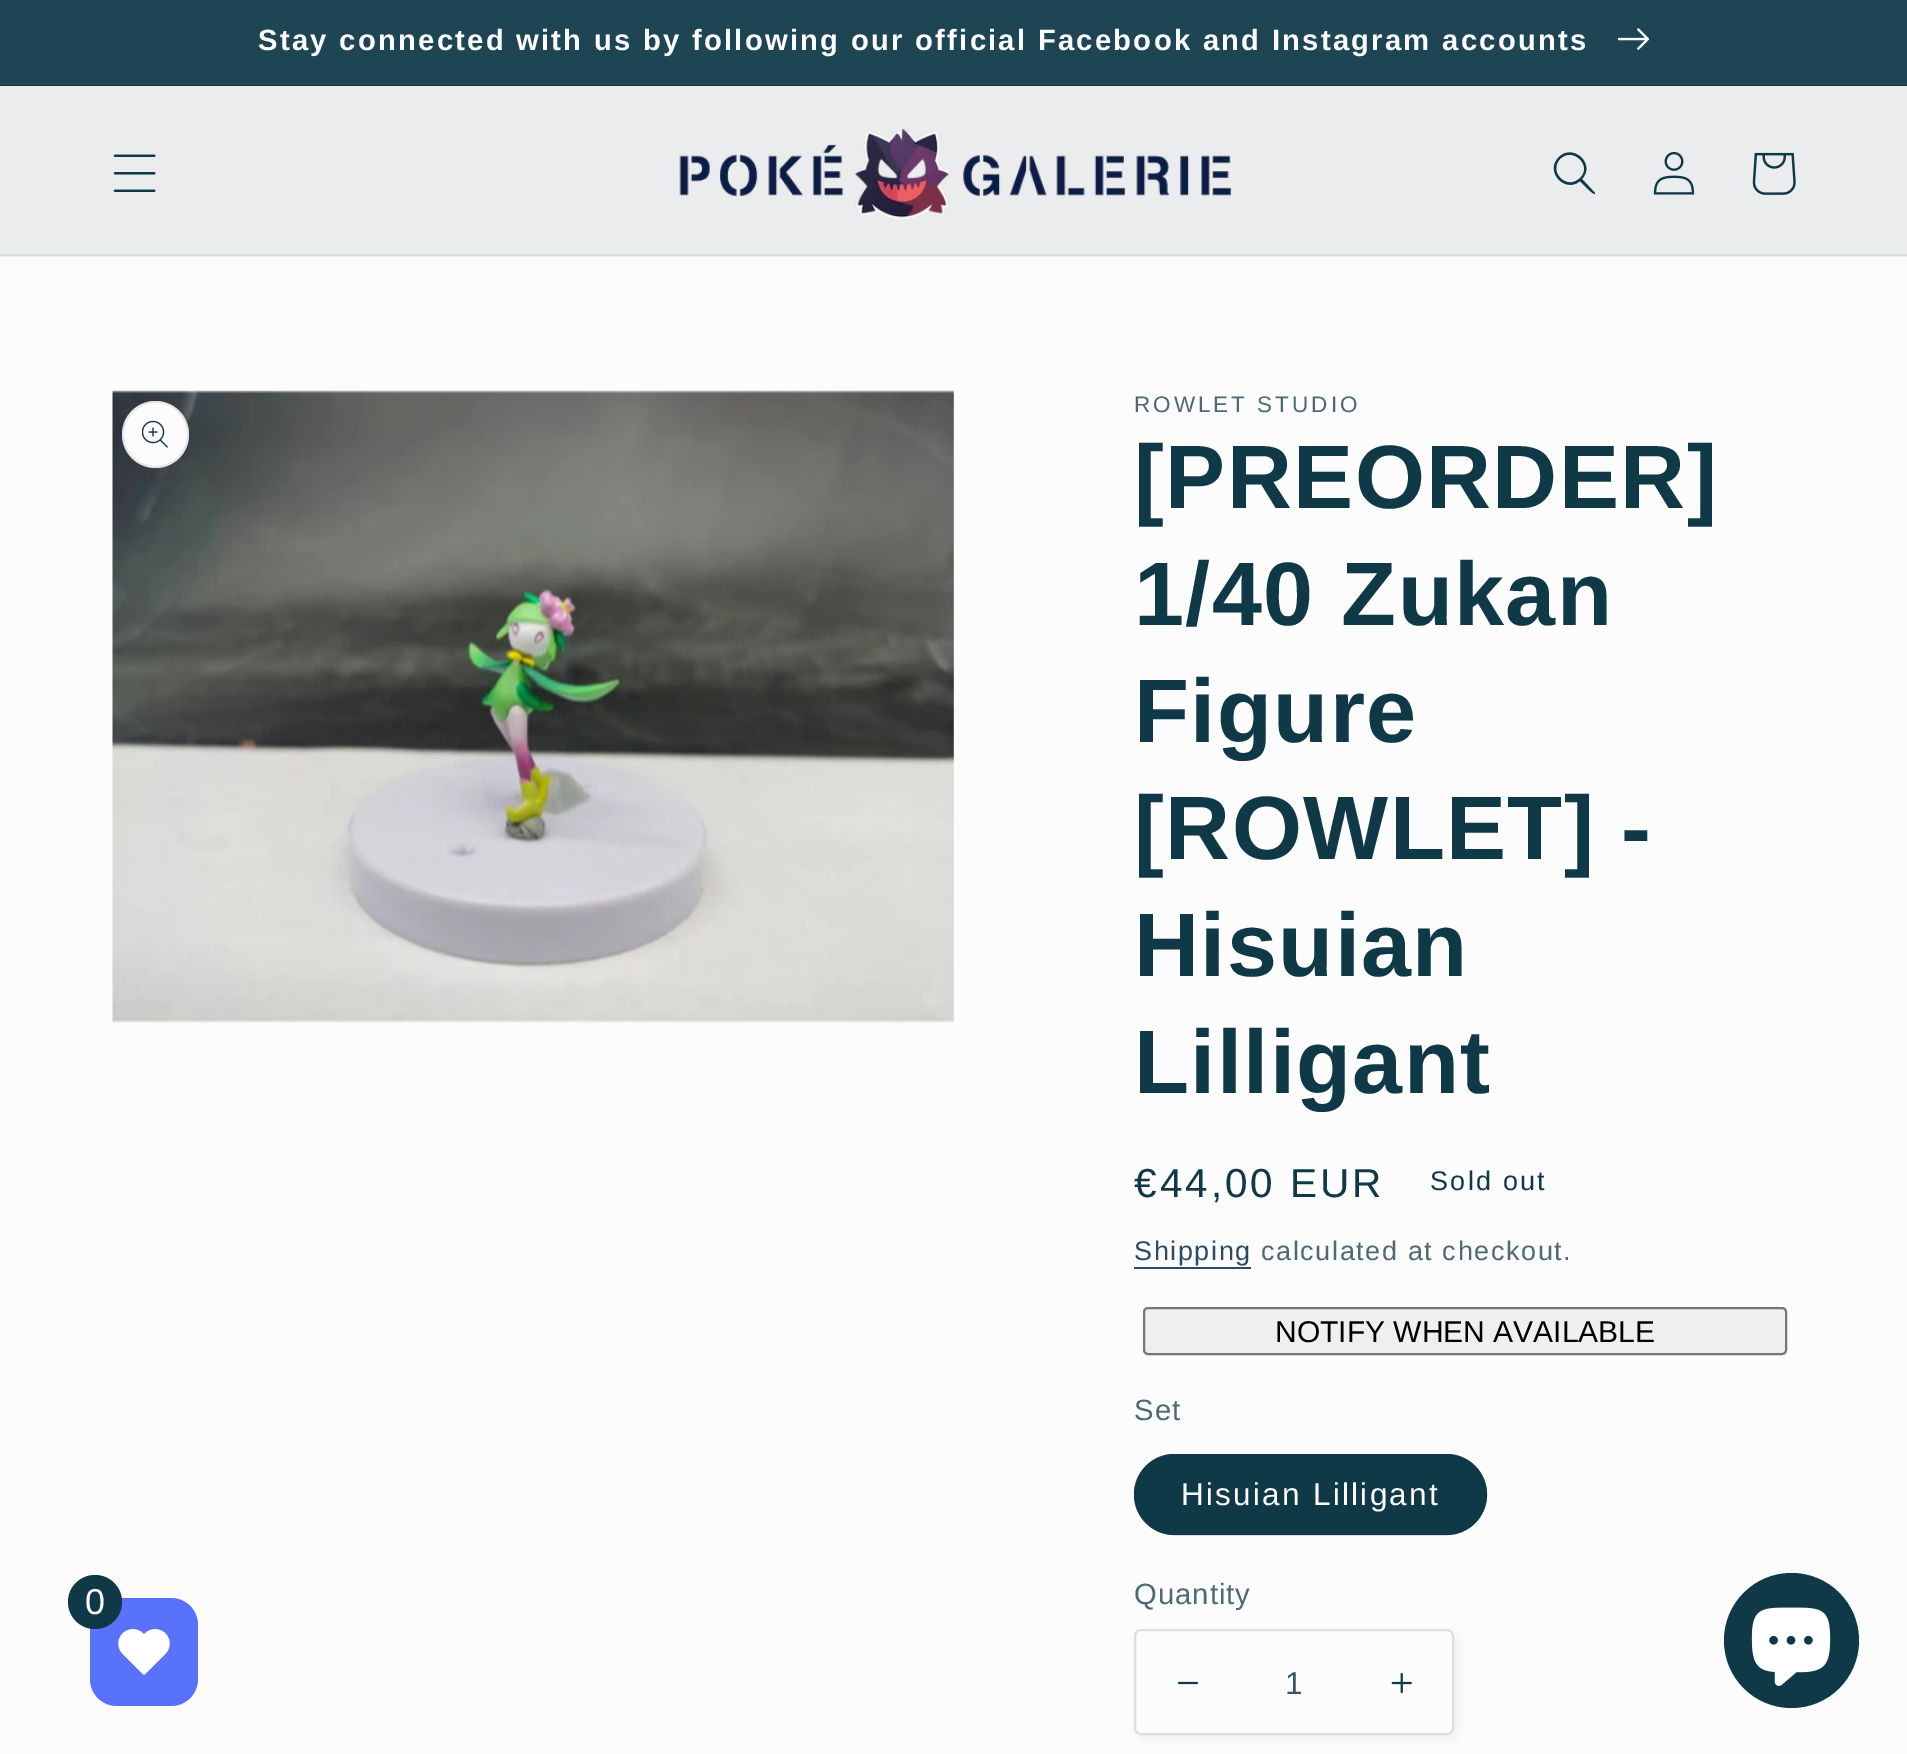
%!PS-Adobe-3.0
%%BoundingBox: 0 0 1907 1754
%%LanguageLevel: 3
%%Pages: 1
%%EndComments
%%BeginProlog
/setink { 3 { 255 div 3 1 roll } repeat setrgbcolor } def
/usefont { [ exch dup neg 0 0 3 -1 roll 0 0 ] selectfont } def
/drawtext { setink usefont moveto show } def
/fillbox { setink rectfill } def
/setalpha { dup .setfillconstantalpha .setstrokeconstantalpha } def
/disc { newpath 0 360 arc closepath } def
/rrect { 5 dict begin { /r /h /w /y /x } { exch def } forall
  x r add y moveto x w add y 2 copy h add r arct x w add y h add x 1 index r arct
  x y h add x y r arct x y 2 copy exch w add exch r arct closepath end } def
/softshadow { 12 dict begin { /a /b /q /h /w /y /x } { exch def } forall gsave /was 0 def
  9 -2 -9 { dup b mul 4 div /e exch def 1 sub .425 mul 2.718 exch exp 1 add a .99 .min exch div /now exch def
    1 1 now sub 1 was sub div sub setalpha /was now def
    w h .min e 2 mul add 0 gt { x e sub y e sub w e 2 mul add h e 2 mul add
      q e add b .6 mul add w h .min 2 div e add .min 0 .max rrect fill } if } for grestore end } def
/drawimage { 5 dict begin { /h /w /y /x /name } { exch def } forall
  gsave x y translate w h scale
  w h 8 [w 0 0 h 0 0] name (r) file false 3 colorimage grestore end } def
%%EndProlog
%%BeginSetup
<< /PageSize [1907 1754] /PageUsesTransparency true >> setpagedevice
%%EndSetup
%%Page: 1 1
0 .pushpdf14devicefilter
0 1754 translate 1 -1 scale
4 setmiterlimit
0 0 1907 1754 252 252 252 fillbox
0 85 1907 1 16 57 72 fillbox
0 83 1907 2 35 73 86 fillbox
0 0 1907 83 30 69 83 fillbox
/LiberationSans-Bold 29.25 usefont
252 252 252 setink
258 50 moveto 2.25 0 (Stay connected with us by following our official Facebook and Instagram accounts) ashow
(assets/img1.rgb) 1618 28 31 22 drawimage
0 86 1907 171 235 236 237 fillbox
0 254 1907 2 217 222 224 fillbox
(assets/img2.rgb) 113 154 43 38 drawimage
(assets/img3.rgb) 679 126 553 95 drawimage
16 57 72 setink
1580 178 moveto 1567 191 1548 172 1560 159 curveto 1573 146 1593 166 1580 178 curveto closepath 1580 181 moveto 1565 194 1544 171 1559 157 curveto 1573 143 1596 164 1582 179 curveto 1595 193 lineto 1595 194 lineto 1593 195 1582 183 1580 181 curveto closepath eofill
(assets/img4.rgb) 1653 151 42 44 drawimage
(assets/img5.rgb) 1752 152 44 43 drawimage
88 115 249 setink
90 1598 108 108 27 rrect fill
16 57 72 setink
95 1602 27 disc fill
/LiberationSans-Regular 36 usefont
252 252 252 setink
85 1614 moveto 1.4 0 (0) ashow
(assets/img6.rgb) 118 1629 52 46 drawimage
(assets/img7.rgb) 112 390 842 633 drawimage
155.5 434.5 33.5 disc fill
0.1 setalpha
16 57 72 setink
2 setlinewidth
155.5 434.5 32.5 disc stroke
1 setalpha
(assets/img8.rgb) 142 420 26 28 drawimage
/LiberationSans-Regular 22.5 usefont
75 106 117 setink
1134 412 moveto 3 0 (ROWLET STUDIO) ashow
/LiberationSans-Bold 90 usefont
16 57 72 setink
1134 508 moveto 1.4 0 ([PREORDER]) ashow
1134 625 moveto 1.4 0 (1/40 Zukan) ashow
1134 742 moveto 1.4 0 (Figure) ashow
1134 859 moveto 1.4 0 ([ROWLET] -) ashow
1134 976 moveto 1.4 0 (Hisuian) ashow
1134 1093 moveto 1.4 0 (Lilligant) ashow
/LiberationSans-Regular 40.5 usefont
1134 1197 moveto 3 0 (€44,00 EUR) ashow
/LiberationSans-Regular 27 usefont
1430 1190 moveto 2.25 0 (Sold out) ashow
42 75 97 setink
1134 1260 moveto 1.6 0 (Shipping) ashow
1134 1267 117 2 42 75 97 fillbox
75 106 117 setink
1261 1260 moveto 1.6 0 (calculated at checkout.) ashow
239 239 239 setink
1144 1308 642 46 4 rrect gsave fill grestore
118 118 118 setink
stroke
(NOTIFY WHEN AVAILABLE) 1275 1342 /LiberationSans-Regular 30 0 0 0 drawtext
/LiberationSans-Regular 29.25 usefont
75 106 117 setink
1134 1420 moveto 1 0 (Set) ashow
16 57 72 setink
1134 1454 353 81 40.5 rrect fill
0.55 setalpha
1135 1455 351 79 39.5 rrect stroke
/LiberationSans-Regular 31.5 usefont
1 setalpha
252 252 252 setink
1181 1505 moveto 2.25 0 (Hisuian Lilligant) ashow
/LiberationSans-Regular 29.25 usefont
75 106 117 setink
1134 1604 moveto 1 0 (Quantity) ashow
16 57 72 setink
1139 1634 319 105 7 5.5 0.05 softshadow
252 252 252 setink
1134 1629 320 106 7 rrect fill
(assets/img9.rgb) 1177 1681 22 4 drawimage
(assets/img10.rgb) 1391 1672 21 22 drawimage
0.15 setalpha
16 57 72 setink
1135 1630 318 104 6 rrect stroke
1 setalpha
(1) 1285 1694 /LiberationSans-Regular 31.5 51 86 99 drawtext
16 57 72 setink
1791.5 1640.5 67.5 disc fill
(assets/img11.rgb) 1751 1607 80 79 drawimage
.poppdf14devicefilter showpage
%%EOF
